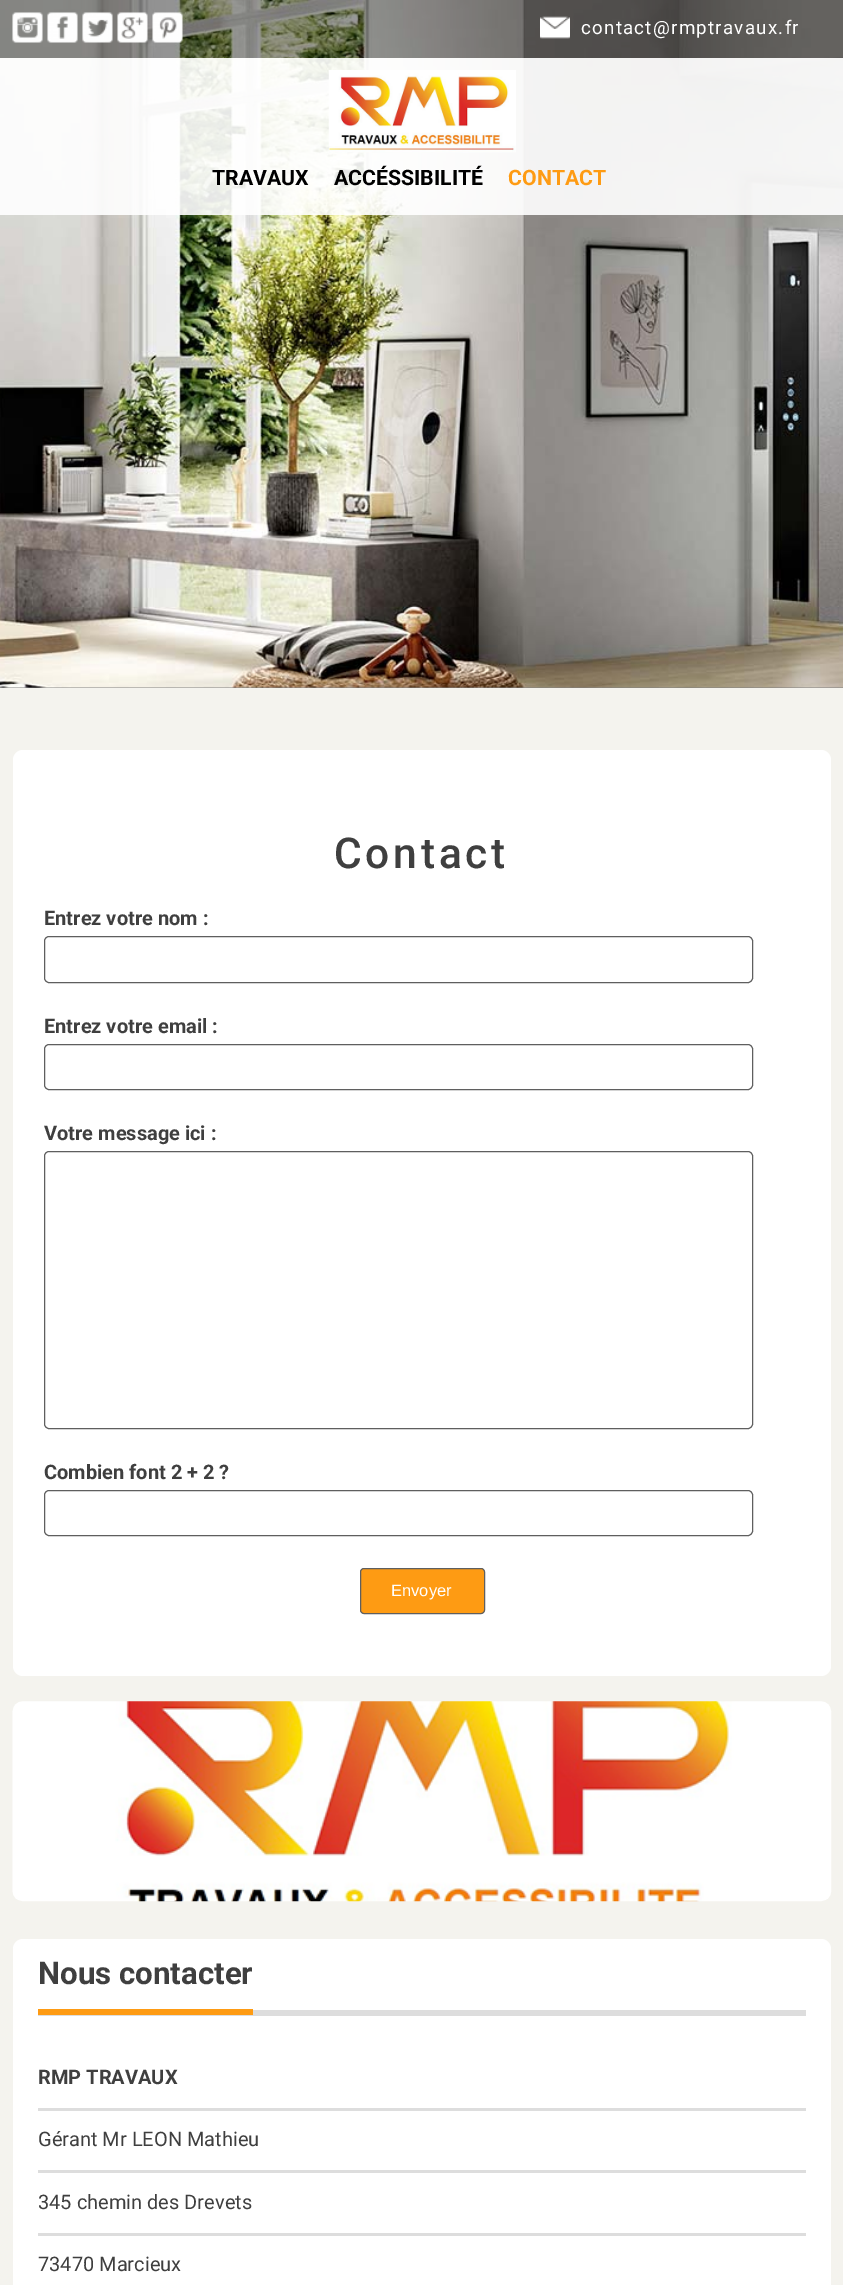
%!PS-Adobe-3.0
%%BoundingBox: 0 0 843 2285
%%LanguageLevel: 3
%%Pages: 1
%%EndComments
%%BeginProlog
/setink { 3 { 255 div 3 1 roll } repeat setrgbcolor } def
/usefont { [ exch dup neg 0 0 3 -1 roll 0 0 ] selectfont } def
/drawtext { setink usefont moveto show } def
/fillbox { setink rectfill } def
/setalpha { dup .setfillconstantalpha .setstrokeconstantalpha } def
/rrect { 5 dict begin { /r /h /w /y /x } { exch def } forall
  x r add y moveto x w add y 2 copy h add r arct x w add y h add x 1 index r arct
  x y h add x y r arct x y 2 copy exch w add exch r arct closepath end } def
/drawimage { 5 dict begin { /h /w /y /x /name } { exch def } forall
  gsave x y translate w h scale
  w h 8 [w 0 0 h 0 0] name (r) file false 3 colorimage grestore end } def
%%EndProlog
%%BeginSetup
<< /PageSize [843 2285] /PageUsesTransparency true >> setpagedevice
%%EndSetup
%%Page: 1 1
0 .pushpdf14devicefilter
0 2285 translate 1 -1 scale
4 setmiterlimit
0 0 843 2285 128 128 128 fillbox
(assets/img1.rgb) 0 0 843 688 drawimage
0.4 setalpha
0 0 843 58 0 0 0 fillbox
1 setalpha
(assets/img2.rgb) 12 12 31 31 drawimage
(assets/img3.rgb) 47 12 31 31 drawimage
(assets/img4.rgb) 82 12 31 31 drawimage
(assets/img5.rgb) 117 12 31 31 drawimage
(assets/img6.rgb) 152 12 31 31 drawimage
(assets/img7.rgb) 540 16 30 23 drawimage
/Roboto-Regular 18.75 usefont
255 255 255 setink
581 34 moveto 1.25 0 (contact@rmptravaux.fr) ashow
0.9 setalpha
0 58 843 157 255 255 255 fillbox
1 setalpha
(assets/img8.rgb) 328 70 188 83 drawimage
(TRAVAUX) 212 185 /Roboto-Bold 21.25 0 0 0 drawtext
(ACCÉSSIBILITÉ) 334 185 /Roboto-Bold 21.25 0 0 0 drawtext
(CONTACT) 508 185 /Roboto-Bold 21.25 254 155 19 drawtext
0 688 843 1597 244 243 238 fillbox
255 255 255 setink
13 750 818 926 10 rrect fill
/Roboto-Medium 42.5 usefont
63 63 63 setink
334 868 moveto 3.75 0 (Contact) ashow
(Entrez votre nom :) 44 925 /Roboto-Bold 20 63 63 63 drawtext
95 95 95 setink
44.5 936.5 708 46 4.5 rrect stroke
(Entrez votre email :) 44 1033 /Roboto-Bold 20 63 63 63 drawtext
95 95 95 setink
44.5 1044.5 708 45 4.5 rrect stroke
(Votre message ici :) 44 1140 /Roboto-Bold 20 63 63 63 drawtext
95 95 95 setink
44.5 1151.5 708 277 4.5 rrect stroke
(Combien font 2 + 2 ?) 44 1479 /Roboto-Bold 20 63 63 63 drawtext
95 95 95 setink
44.5 1490.5 708 45 4.5 rrect stroke
254 155 19 setink
360.5 1568.5 124 45 3.5 rrect gsave fill grestore
95 95 95 setink
stroke
(Envoyer) 391 1596 /LiberationSans-Regular 16.5 255 255 255 drawtext
(assets/img9.rgb) 12 1701 820 201 drawimage
13 1939 818 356 10 rrect fill
38 2010 768 6 221 221 221 fillbox
38 2009 215 6 254 155 19 fillbox
(Nous contacter) 38 1984 /Roboto-Bold 31.25 63 63 63 drawtext
38 2108 768 3 221 221 221 fillbox
(RMP TRAVAUX) 38 2084 /Roboto-Bold 20 63 63 63 drawtext
38 2170 768 3 221 221 221 fillbox
(Gérant Mr LEON Mathieu) 38 2146 /Roboto-Regular 20 63 63 63 drawtext
38 2233 768 3 221 221 221 fillbox
(345 chemin des Drevets) 38 2209 /Roboto-Regular 20 63 63 63 drawtext
(73470 Marcieux) 38 2271 /Roboto-Regular 20 63 63 63 drawtext
.poppdf14devicefilter showpage
%%EOF
